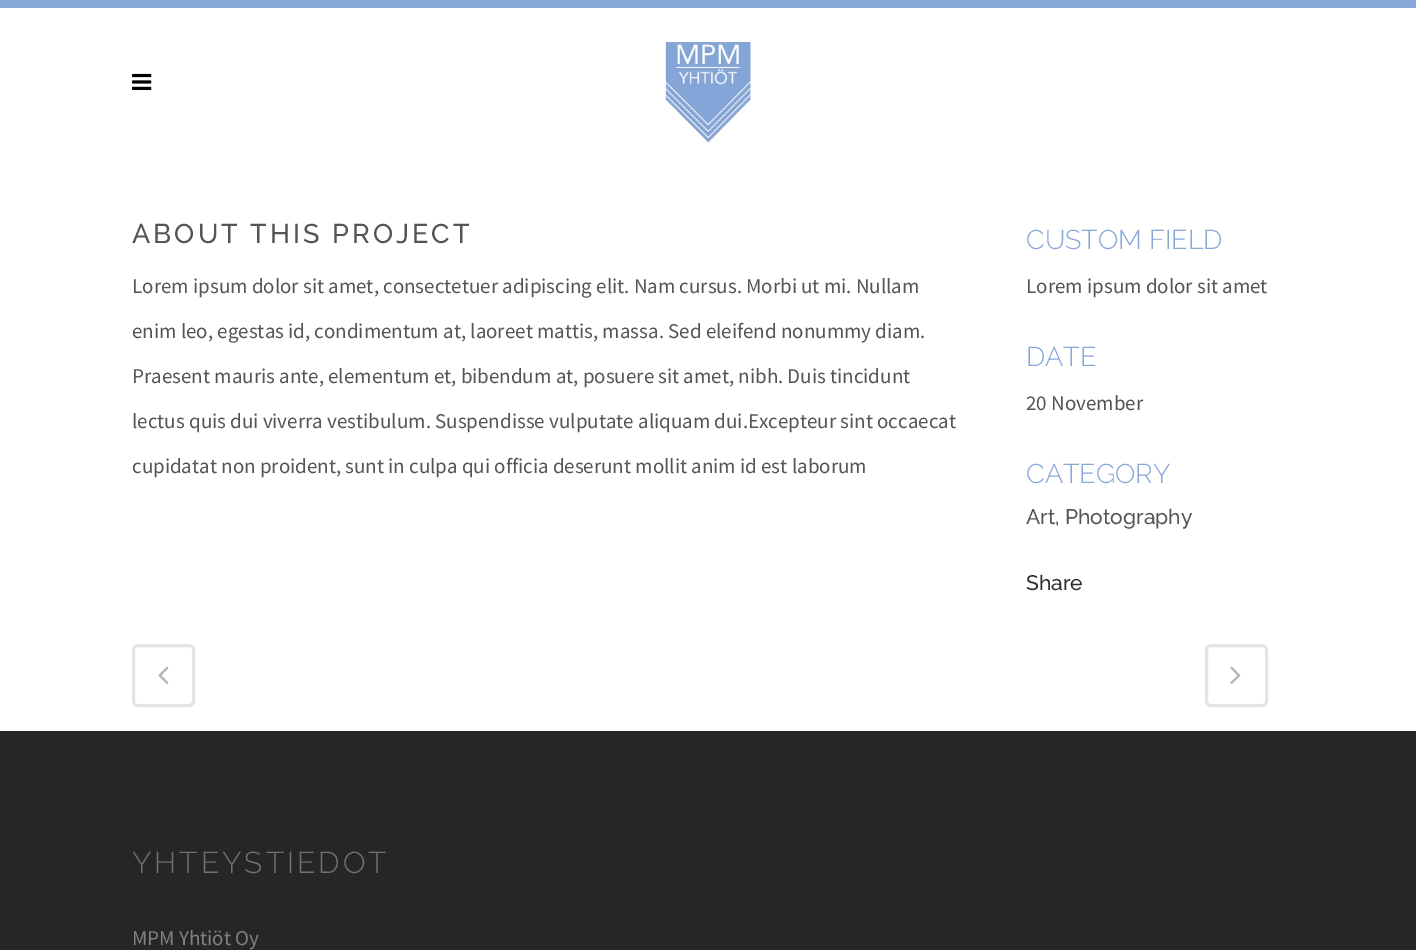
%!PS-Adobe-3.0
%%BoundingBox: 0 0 1416 950
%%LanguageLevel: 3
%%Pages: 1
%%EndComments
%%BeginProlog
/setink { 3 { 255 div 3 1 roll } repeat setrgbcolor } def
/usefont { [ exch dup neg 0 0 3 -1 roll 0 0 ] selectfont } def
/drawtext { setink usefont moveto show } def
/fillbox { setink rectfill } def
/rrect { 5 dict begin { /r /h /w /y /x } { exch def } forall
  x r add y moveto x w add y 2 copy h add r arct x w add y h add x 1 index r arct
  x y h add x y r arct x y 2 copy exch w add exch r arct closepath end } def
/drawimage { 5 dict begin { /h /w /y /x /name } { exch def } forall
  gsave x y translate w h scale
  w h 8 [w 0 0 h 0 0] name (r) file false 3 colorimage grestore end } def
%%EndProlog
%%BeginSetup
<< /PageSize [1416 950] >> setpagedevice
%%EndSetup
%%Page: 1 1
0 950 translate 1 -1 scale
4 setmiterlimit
0 0 1416 950 255 255 255 fillbox
0 0 1416 8 135 167 215 fillbox
(assets/img1.rgb) 132 73 20 17 drawimage
(assets/img2.rgb) 665 42 86 101 drawimage
/Raleway-Medium 27 usefont
85 85 85 setink
132 243 moveto 3 0 (ABOUT THIS PROJECT) ashow
(Lorem ipsum dolor sit amet, consectetuer adipiscing elit. Nam cursus. Morbi ut mi. Nullam) 132 293 /SourceSansPro-Regular 21 85 85 85 drawtext
(enim leo, egestas id, condimentum at, laoreet mattis, massa. Sed eleifend nonummy diam.) 132 338 /SourceSansPro-Regular 21 85 85 85 drawtext
(Praesent mauris ante, elementum et, bibendum at, posuere sit amet, nibh. Duis tincidunt) 132 383 /SourceSansPro-Regular 21 85 85 85 drawtext
(lectus quis dui viverra vestibulum. Suspendisse vulputate aliquam dui.Excepteur sint occaecat) 132 428 /SourceSansPro-Regular 21 85 85 85 drawtext
(cupidatat non proident, sunt in culpa qui officia deserunt mollit anim id est laborum) 132 473 /SourceSansPro-Regular 21 85 85 85 drawtext
(CUSTOM FIELD) 1026 249 /Raleway-Light 27 135 167 215 drawtext
(Lorem ipsum dolor sit amet) 1026 293 /SourceSansPro-Regular 21 85 85 85 drawtext
(DATE) 1026 366 /Raleway-Light 27 135 167 215 drawtext
(20 November) 1026 410 /SourceSansPro-Regular 21 85 85 85 drawtext
(CATEGORY) 1026 483 /Raleway-Light 27 135 167 215 drawtext
(Art, Photography) 1026 524 /Raleway-Medium 21 85 85 85 drawtext
(Share) 1026 590 /Raleway-Medium 21 48 48 48 drawtext
229 229 229 setink
3 setlinewidth
133.5 645.5 60 60 4.5 rrect stroke
(assets/img3.rgb) 158 666 11 18 drawimage
1206.5 645.5 60 60 4.5 rrect stroke
(assets/img4.rgb) 1230 666 11 18 drawimage
0 731 1416 219 38 38 38 fillbox
/Raleway-Light 30 usefont
114 114 114 setink
132 873 moveto 3 0 (YHTEYSTIEDOT) ashow
(MPM Yhtiöt Oy) 132 945 /SourceSansPro-Regular 21 129 129 129 drawtext
showpage
%%EOF
